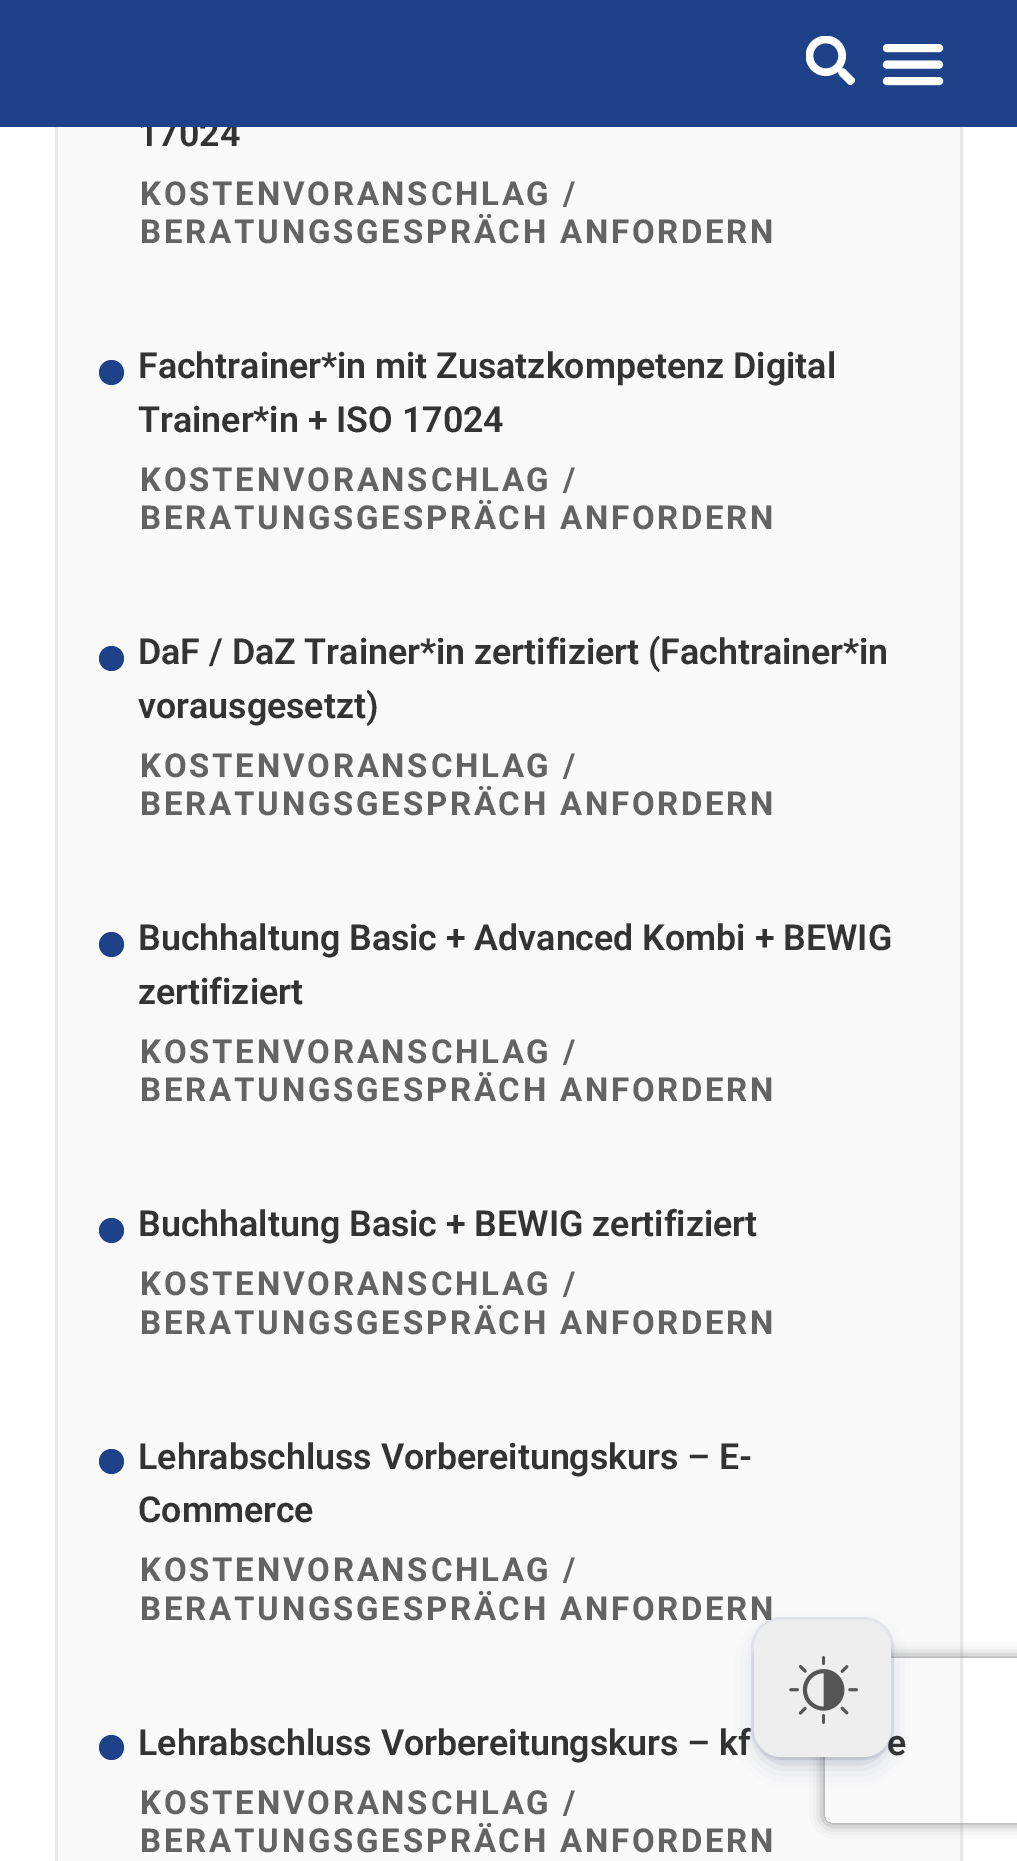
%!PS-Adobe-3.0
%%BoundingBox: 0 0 1017 1861
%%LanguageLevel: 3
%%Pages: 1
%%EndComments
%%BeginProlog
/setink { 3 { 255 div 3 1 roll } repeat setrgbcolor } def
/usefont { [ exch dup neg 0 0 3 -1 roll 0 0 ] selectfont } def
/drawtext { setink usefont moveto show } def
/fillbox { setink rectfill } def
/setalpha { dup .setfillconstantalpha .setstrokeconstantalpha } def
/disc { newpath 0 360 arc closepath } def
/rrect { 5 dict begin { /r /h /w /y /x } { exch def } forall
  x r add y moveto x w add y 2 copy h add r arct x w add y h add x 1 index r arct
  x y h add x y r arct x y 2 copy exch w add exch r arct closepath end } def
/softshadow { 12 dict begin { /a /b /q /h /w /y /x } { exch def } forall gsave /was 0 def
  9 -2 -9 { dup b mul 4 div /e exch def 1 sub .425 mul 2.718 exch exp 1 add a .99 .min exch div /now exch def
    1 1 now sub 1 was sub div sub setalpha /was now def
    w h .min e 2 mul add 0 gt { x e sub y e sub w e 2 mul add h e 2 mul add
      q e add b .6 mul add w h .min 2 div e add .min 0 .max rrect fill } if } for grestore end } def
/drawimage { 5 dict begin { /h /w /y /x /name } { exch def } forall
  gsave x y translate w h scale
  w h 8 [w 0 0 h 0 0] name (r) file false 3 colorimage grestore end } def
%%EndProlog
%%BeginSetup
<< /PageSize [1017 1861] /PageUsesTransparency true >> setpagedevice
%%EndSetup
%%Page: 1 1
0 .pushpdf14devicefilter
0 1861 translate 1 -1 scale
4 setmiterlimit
0 0 1017 1861 255 255 255 fillbox
233 233 233 setink
3 setlinewidth
56.5 -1.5 905 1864 rectstroke
58 127 902 1734 249 249 249 fillbox
(17024) 138 146 /Roboto-SemiBold 35.75 51 51 51 drawtext
0 0 1017 127 29 66 138 fillbox
(assets/img1.rgb) 806 36 49 49 drawimage
(assets/img2.rgb) 882 44 62 42 drawimage
/Roboto-Bold 33 usefont
99 99 99 setink
140 205 moveto 2.75 0 (KOSTENVORANSCHLAG /) ashow
140 243 moveto 2.75 0 (BERATUNGSGESPRÄCH ANFORDERN) ashow
29 66 138 setink
111.5 372.5 12.5 disc fill
(Fachtrainer*in mit Zusatzkompetenz Digital) 138 378 /Roboto-SemiBold 35.75 51 51 51 drawtext
(Trainer*in + ISO 17024) 138 432 /Roboto-SemiBold 35.75 51 51 51 drawtext
/Roboto-Bold 33 usefont
99 99 99 setink
140 491 moveto 2.75 0 (KOSTENVORANSCHLAG /) ashow
140 529 moveto 2.75 0 (BERATUNGSGESPRÄCH ANFORDERN) ashow
29 66 138 setink
111.5 658.5 12.5 disc fill
(DaF / DaZ Trainer*in zertifiziert \(Fachtrainer*in) 138 664 /Roboto-SemiBold 35.75 51 51 51 drawtext
(vorausgesetzt\)) 138 718 /Roboto-SemiBold 35.75 51 51 51 drawtext
/Roboto-Bold 33 usefont
99 99 99 setink
140 777 moveto 2.75 0 (KOSTENVORANSCHLAG /) ashow
140 815 moveto 2.75 0 (BERATUNGSGESPRÄCH ANFORDERN) ashow
29 66 138 setink
111.5 944.5 12.5 disc fill
(Buchhaltung Basic + Advanced Kombi + BEWIG) 138 950 /Roboto-SemiBold 35.75 51 51 51 drawtext
(zertifiziert) 138 1004 /Roboto-SemiBold 35.75 51 51 51 drawtext
/Roboto-Bold 33 usefont
99 99 99 setink
140 1063 moveto 2.75 0 (KOSTENVORANSCHLAG /) ashow
140 1101 moveto 2.75 0 (BERATUNGSGESPRÄCH ANFORDERN) ashow
29 66 138 setink
111.5 1230.5 12.5 disc fill
(Buchhaltung Basic + BEWIG zertifiziert) 138 1236 /Roboto-SemiBold 35.75 51 51 51 drawtext
/Roboto-Bold 33 usefont
99 99 99 setink
140 1295 moveto 2.75 0 (KOSTENVORANSCHLAG /) ashow
140 1334 moveto 2.75 0 (BERATUNGSGESPRÄCH ANFORDERN) ashow
29 66 138 setink
111.5 1461.5 12.5 disc fill
(Lehrabschluss Vorbereitungskurs – E-) 138 1469 /Roboto-SemiBold 35.75 51 51 51 drawtext
(Commerce) 138 1522 /Roboto-SemiBold 35.75 51 51 51 drawtext
/Roboto-Bold 33 usefont
99 99 99 setink
140 1581 moveto 2.75 0 (KOSTENVORANSCHLAG /) ashow
140 1620 moveto 2.75 0 (BERATUNGSGESPRÄCH ANFORDERN) ashow
29 66 138 setink
111.5 1747.5 12.5 disc fill
(Lehrabschluss Vorbereitungskurs – kf) 138 1755 /Roboto-SemiBold 35.75 51 51 51 drawtext
(e) 887 1755 /Roboto-SemiBold 35.75 51 51 51 drawtext
/Roboto-Bold 33 usefont
99 99 99 setink
140 1814 moveto 2.75 0 (KOSTENVORANSCHLAG /) ashow
140 1852 moveto 2.75 0 (BERATUNGSGESPRÄCH ANFORDERN) ashow
gsave
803 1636 moveto 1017 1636 lineto 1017 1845 lineto 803 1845 lineto closepath 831 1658 moveto 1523 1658 lineto 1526.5 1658 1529 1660.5 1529 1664 curveto 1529 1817 lineto 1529 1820.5 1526.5 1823 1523 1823 curveto 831 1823 lineto 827.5 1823 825 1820.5 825 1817 curveto 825 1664 lineto 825 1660.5 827.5 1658 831 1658 curveto closepath eoclip newpath
128 128 128 setink
825 1658 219 165 6 7 1 softshadow
grestore
0.08 setalpha
9 30 66 setink
752.5 1618.5 140 140 28.5 rrect stroke
1 setalpha
759 1636 127 127 22 11 0.25 softshadow
238 238 238 setink
754 1620 137 137 28 rrect fill
(assets/img3.rgb) 789 1656 69 68 drawimage
.poppdf14devicefilter showpage
%%EOF
